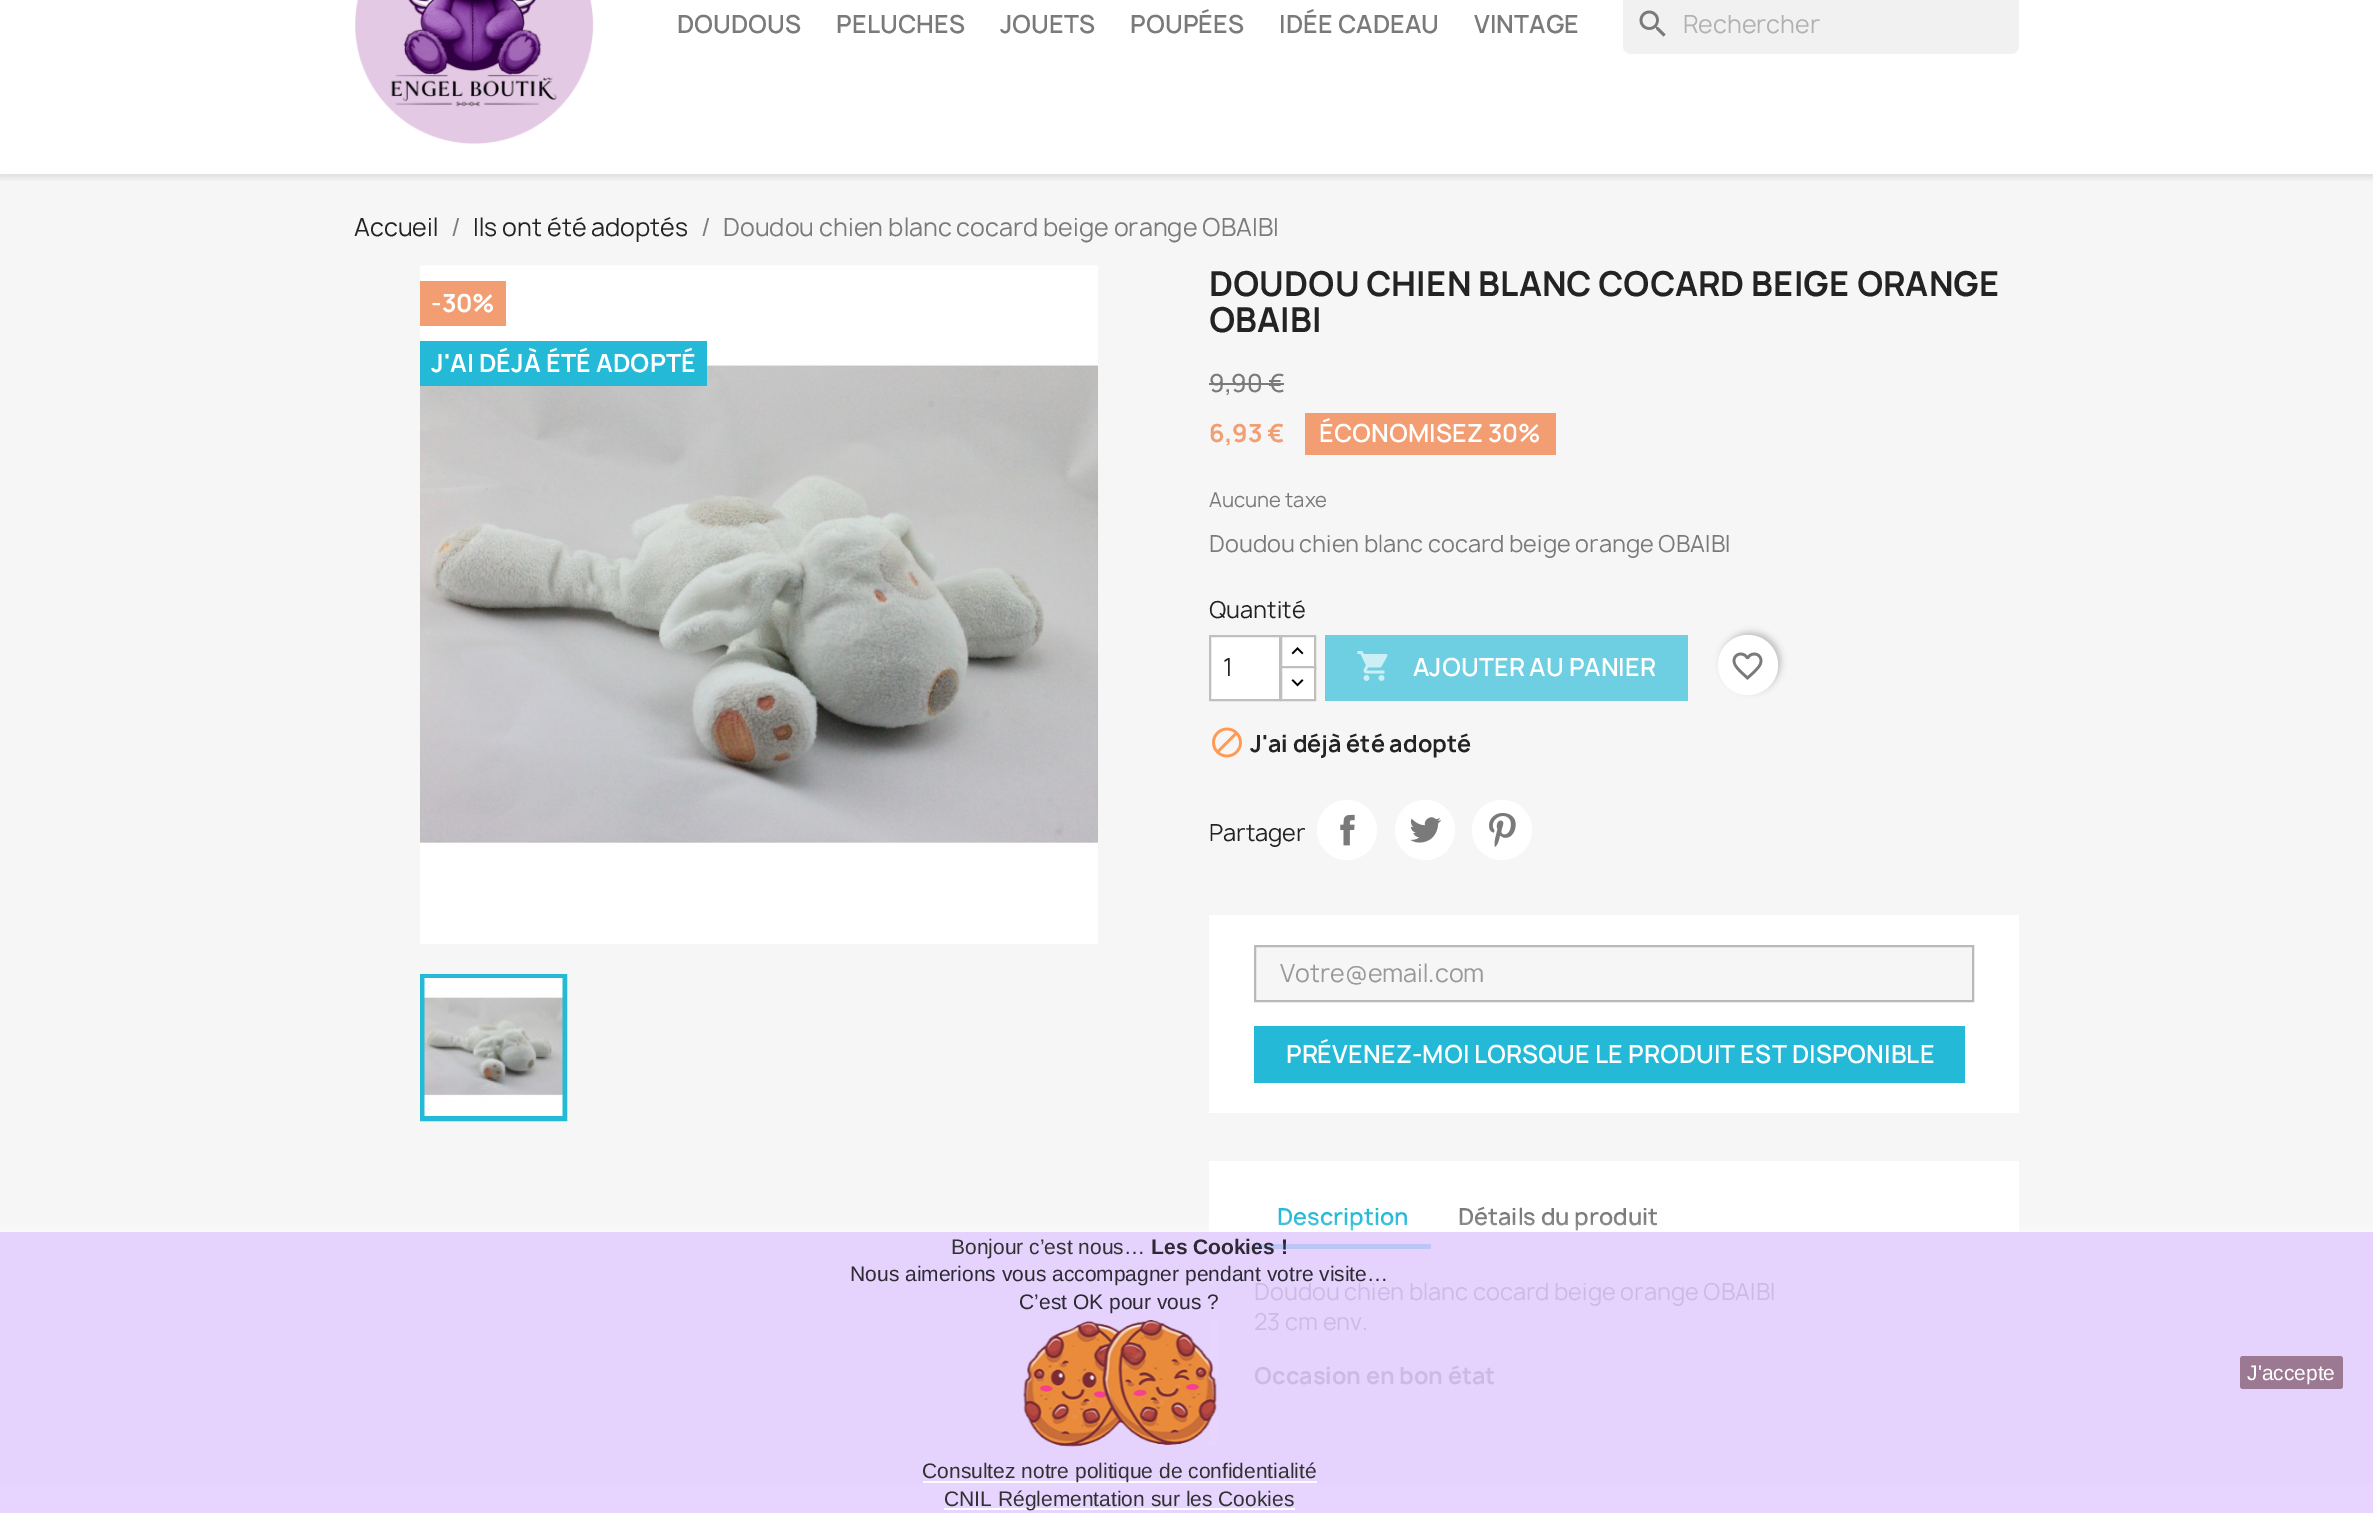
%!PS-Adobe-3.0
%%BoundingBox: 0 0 2373 1513
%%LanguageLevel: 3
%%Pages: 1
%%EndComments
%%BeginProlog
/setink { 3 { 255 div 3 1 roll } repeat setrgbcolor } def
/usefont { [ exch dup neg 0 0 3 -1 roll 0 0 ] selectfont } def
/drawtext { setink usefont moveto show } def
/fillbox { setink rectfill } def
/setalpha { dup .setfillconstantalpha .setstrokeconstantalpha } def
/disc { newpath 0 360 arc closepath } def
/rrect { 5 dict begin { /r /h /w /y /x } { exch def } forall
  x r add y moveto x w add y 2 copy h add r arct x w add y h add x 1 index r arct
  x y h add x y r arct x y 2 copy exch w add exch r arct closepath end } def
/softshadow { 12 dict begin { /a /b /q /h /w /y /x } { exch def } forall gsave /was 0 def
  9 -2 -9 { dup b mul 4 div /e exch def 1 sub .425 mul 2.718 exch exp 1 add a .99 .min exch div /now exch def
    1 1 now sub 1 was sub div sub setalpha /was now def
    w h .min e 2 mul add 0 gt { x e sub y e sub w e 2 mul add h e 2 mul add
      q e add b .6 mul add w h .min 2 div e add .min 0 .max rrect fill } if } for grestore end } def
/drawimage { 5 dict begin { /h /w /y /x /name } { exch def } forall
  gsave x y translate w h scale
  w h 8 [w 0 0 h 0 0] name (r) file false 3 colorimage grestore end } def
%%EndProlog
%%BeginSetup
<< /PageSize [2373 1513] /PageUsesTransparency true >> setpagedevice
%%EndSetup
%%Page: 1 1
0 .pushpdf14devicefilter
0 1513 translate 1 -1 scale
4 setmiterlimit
0 0 2373 1513 255 255 255 fillbox
0 1484 2373 29 231 212 255 fillbox
0 174 2373 1058 246 246 246 fillbox
gsave
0 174 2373 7 rectclip
0 0 0 setink
0 -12 2373 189 0 4 0.11 softshadow
grestore
(assets/img1.rgb) 355 0 239 144 drawimage
(DOUDOUS) 677 33 /Manrope-SemiBold 24 122 122 122 drawtext
(PELUCHES) 836 33 /Manrope-SemiBold 24 122 122 122 drawtext
(JOUETS) 1000 33 /Manrope-SemiBold 24 122 122 122 drawtext
(POUPÉES) 1130 33 /Manrope-SemiBold 24 122 122 122 drawtext
(IDÉE CADEAU) 1279 33 /Manrope-SemiBold 24 122 122 122 drawtext
(VINTAGE) 1474 33 /Manrope-SemiBold 24 122 122 122 drawtext
241 241 241 setink
1623 -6 396 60 8 rrect fill
(assets/img2.rgb) 1639 10 27 27 drawimage
(Rechercher) 1683 33 /Manrope-Regular 24 177 177 177 drawtext
0 1232 2373 252 229 210 253 fillbox
(Accueil) 354 236 /Manrope-Regular 24 35 35 35 drawtext
(/) 451 236 /Manrope-Regular 24 122 122 122 drawtext
(Ils ont été adoptés) 473 236 /Manrope-Regular 24 35 35 35 drawtext
(/) 701 236 /Manrope-Regular 24 122 122 122 drawtext
(Doudou chien blanc cocard beige orange OBAIBI) 723 236 /Manrope-Regular 24 122 122 122 drawtext
(assets/img3.rgb) 420 265 678 578 drawimage
420 843 678 101 255 255 255 fillbox
36 185 215 setink
5 setlinewidth
422.5 976.5 142 142 rectstroke
(assets/img4.rgb) 424 978 139 138 drawimage
420 281 86 45 243 157 114 fillbox
(-30%) 431 312 /Manrope-Bold 24 255 255 255 drawtext
420 341 287 45 36 185 215 fillbox
(J'AI DÉJÀ ÉTÉ ADOPTÉ) 431 372 /Manrope-Bold 24 255 255 255 drawtext
(DOUDOU CHIEN BLANC COCARD BEIGE ORANGE) 1209 296 /Manrope-Bold 33 35 35 35 drawtext
(OBAIBI) 1209 332 /Manrope-Bold 33 35 35 35 drawtext
(9,90 €) 1209 392 /Manrope-Medium 24 122 122 122 drawtext
1209 383 75 2 122 122 122 fillbox
(6,93 €) 1209 442 /Manrope-Bold 24 243 157 114 drawtext
1305 413 251 42 243 157 114 fillbox
(ÉCONOMISEZ 30%) 1319 442 /Manrope-SemiBold 24 255 255 255 drawtext
(Aucune taxe) 1209 507 /Manrope-Regular 19.5 122 122 122 drawtext
(Doudou chien blanc cocard beige orange OBAIBI) 1209 552 /Manrope-Regular 22.5 122 122 122 drawtext
(Quantité) 1209 618 /Manrope-Regular 22.5 35 35 35 drawtext
1282 637 32 29 255 255 255 fillbox
191 191 191 setink
2 setlinewidth
1281 636 34 32 rectstroke
255 255 255 setink
1281 667 moveto 1315 667 lineto 1315 700 lineto 1281 700 lineto closepath gsave fill grestore
191 191 191 setink
stroke
255 255 255 setink
1210 636 moveto 1280 636 lineto 1280 700 lineto 1210 700 lineto closepath gsave fill grestore
191 191 191 setink
stroke
(1) 1223 676 /Manrope-Regular 24 35 35 35 drawtext
(assets/img5.rgb) 1291 647 13 8 drawimage
(assets/img6.rgb) 1291 679 13 8 drawimage
1325 635 363 66 110 206 226 fillbox
(assets/img7.rgb) 1357 651 31 30 drawimage
(AJOUTER AU PANIER) 1413 676 /Manrope-SemiBold 24 255 255 255 drawtext
0 0 0 setink
1721 632 60 60 30 3 0.2 softshadow
255 255 255 setink
1748 665 30 disc fill
(assets/img8.rgb) 1732 652 31 28 drawimage
(assets/img9.rgb) 1212 727 30 31 drawimage
(J'ai déjà été adopté) 1250 752 /Manrope-Bold 22.5 35 35 35 drawtext
(Partager) 1209 841 /Manrope-Regular 22.5 35 35 35 drawtext
255 255 255 setink
1347 830 30 disc fill
(assets/img10.rgb) 1340 814 15 32 drawimage
1425 830 30 disc fill
(assets/img11.rgb) 1410 817 32 26 drawimage
1502 830 30 disc fill
(assets/img12.rgb) 1489 812 27 35 drawimage
1209 915 810 198 255 255 255 fillbox
246 246 246 setink
1255 946 moveto 1973 946 lineto 1973 1001 lineto 1255 1001 lineto closepath gsave fill grestore
185 185 185 setink
stroke
(Votre@email.com) 1280 982 /Manrope-Regular 24 153 153 153 drawtext
1254 1026 711 57 36 185 215 fillbox
(PRÉVENEZ-MOI LORSQUE LE PRODUIT EST DISPONIBLE) 1286 1063 /Manrope-SemiBold 24 255 255 255 drawtext
1209 1161 810 71 255 255 255 fillbox
1254 1244 177 5 187 198 247 fillbox
(Description) 1277 1225 /Manrope-SemiBold 22.5 36 185 215 drawtext
(Détails du produit) 1458 1225 /Manrope-SemiBold 22.5 122 122 122 drawtext
(Doudou chien blanc cocard beige orange OBAIBI) 1254 1300 /Manrope-Regular 22.5 204 185 228 drawtext
(23 cm env.) 1254 1330 /Manrope-Regular 22.5 204 185 228 drawtext
(Occasion en bon état) 1254 1384 /Manrope-Bold 22.5 204 185 228 drawtext
gsave
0 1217 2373 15 rectclip
255 255 255 setink
0 1232 2373 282 0 7.5 0.8 softshadow
grestore
(Bonjour c’est nous…) 951 1254 /LiberationSans-Regular 21 49 49 49 drawtext
(Les Cookies !) 1151 1254 /LiberationSans-Bold 21 45 42 51 drawtext
(Nous aimerions vous accompagner pendant votre visite…) 850 1281 /LiberationSans-Regular 21 45 42 51 drawtext
(C’est OK pour vous ?) 1019 1309 /LiberationSans-Regular 21 45 42 51 drawtext
(assets/img13.rgb) 1023 1320 194 127 drawimage
923 1481 394 2 253 253 253 fillbox
(Consultez notre politique de confidentialité) 922 1478 /LiberationSans-Regular 21 49 49 49 drawtext
944 1508 351 2 255 255 255 fillbox
(CNIL Réglementation sur les Cookies) 944 1506 /LiberationSans-Regular 21 49 49 49 drawtext
156 121 146 setink
2240 1356 103 33 3 rrect fill
(J'accepte) 2247 1380 /LiberationSans-Regular 21 255 255 255 drawtext
.poppdf14devicefilter showpage
%%EOF
